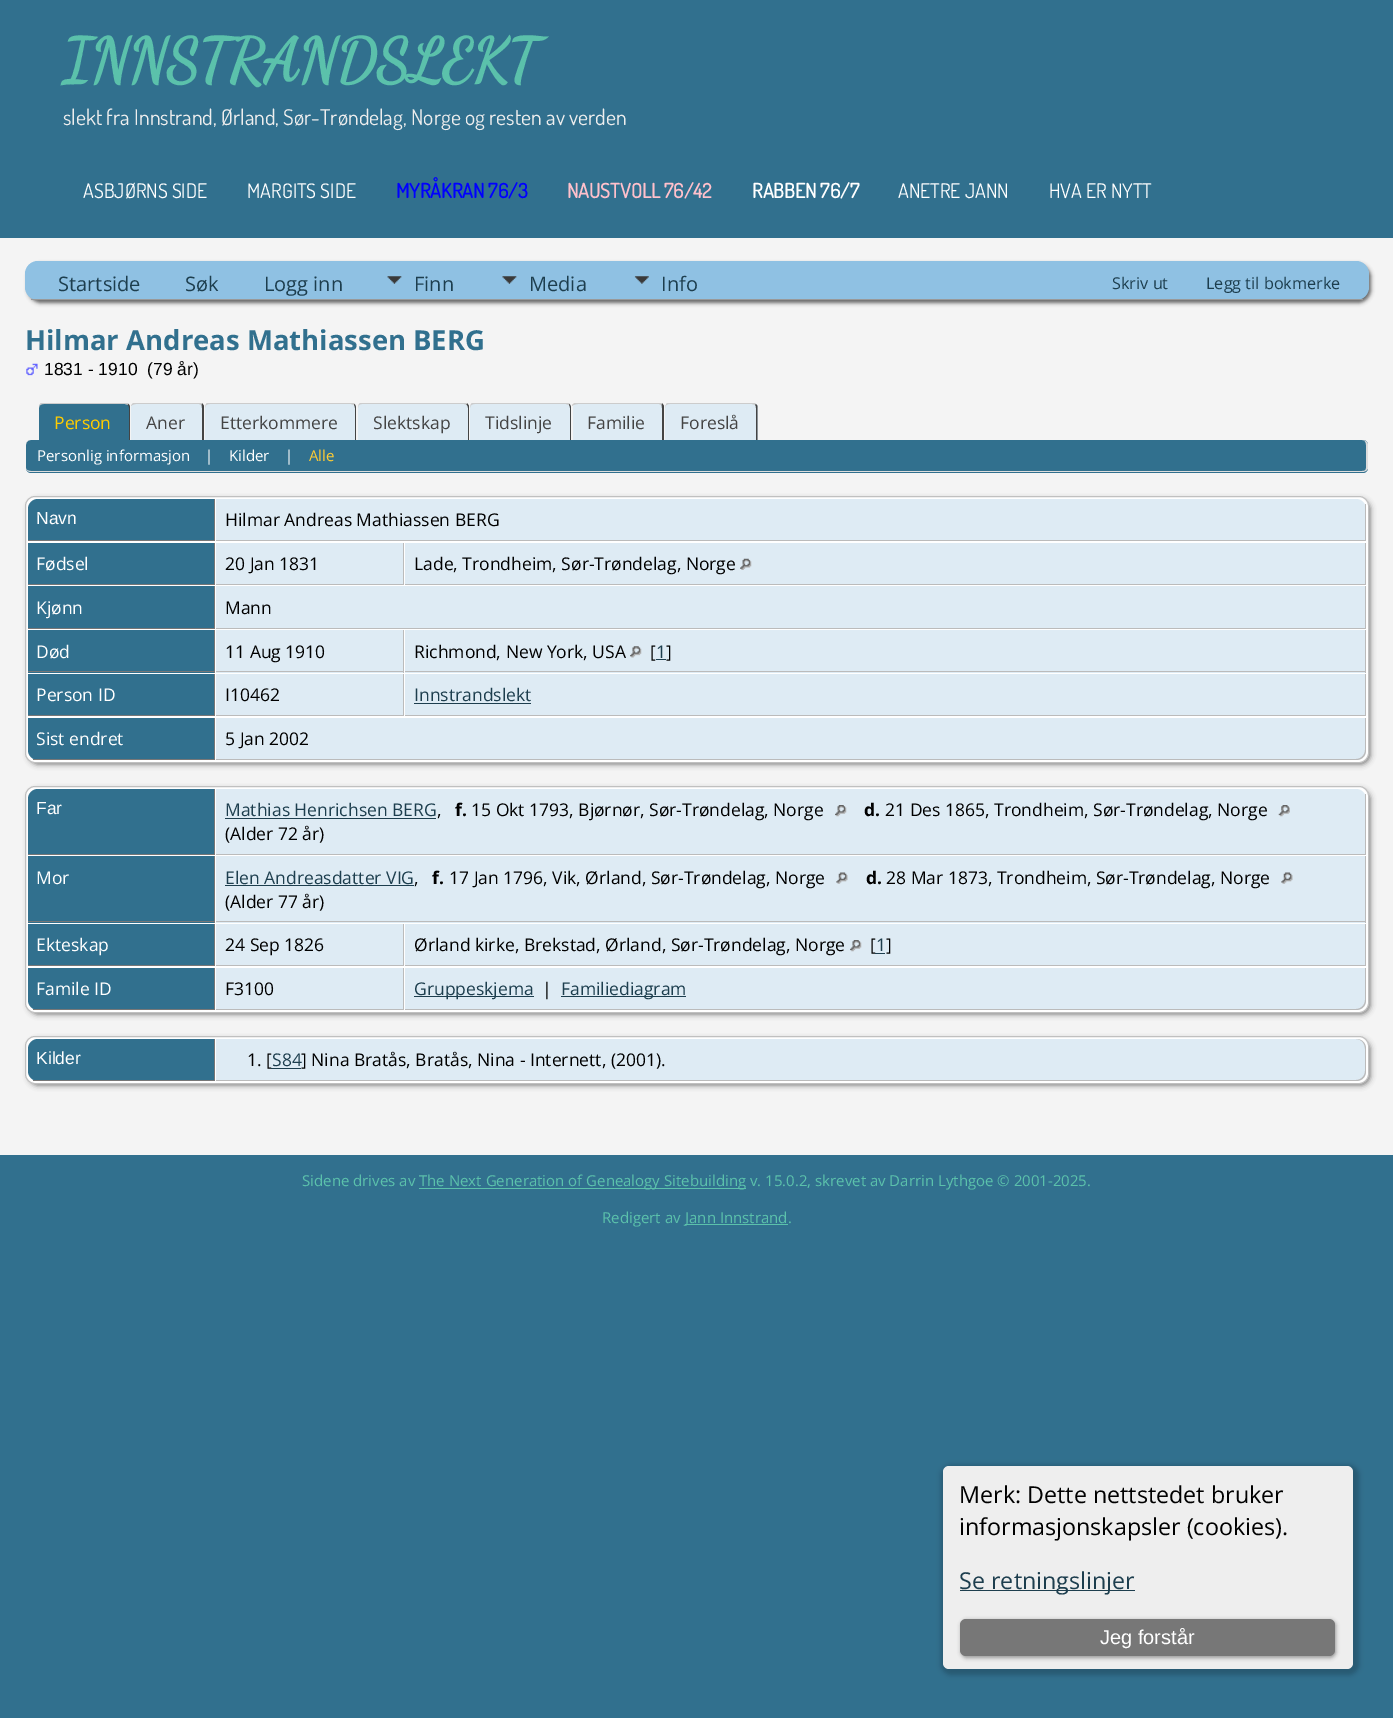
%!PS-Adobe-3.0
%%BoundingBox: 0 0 1393 1718
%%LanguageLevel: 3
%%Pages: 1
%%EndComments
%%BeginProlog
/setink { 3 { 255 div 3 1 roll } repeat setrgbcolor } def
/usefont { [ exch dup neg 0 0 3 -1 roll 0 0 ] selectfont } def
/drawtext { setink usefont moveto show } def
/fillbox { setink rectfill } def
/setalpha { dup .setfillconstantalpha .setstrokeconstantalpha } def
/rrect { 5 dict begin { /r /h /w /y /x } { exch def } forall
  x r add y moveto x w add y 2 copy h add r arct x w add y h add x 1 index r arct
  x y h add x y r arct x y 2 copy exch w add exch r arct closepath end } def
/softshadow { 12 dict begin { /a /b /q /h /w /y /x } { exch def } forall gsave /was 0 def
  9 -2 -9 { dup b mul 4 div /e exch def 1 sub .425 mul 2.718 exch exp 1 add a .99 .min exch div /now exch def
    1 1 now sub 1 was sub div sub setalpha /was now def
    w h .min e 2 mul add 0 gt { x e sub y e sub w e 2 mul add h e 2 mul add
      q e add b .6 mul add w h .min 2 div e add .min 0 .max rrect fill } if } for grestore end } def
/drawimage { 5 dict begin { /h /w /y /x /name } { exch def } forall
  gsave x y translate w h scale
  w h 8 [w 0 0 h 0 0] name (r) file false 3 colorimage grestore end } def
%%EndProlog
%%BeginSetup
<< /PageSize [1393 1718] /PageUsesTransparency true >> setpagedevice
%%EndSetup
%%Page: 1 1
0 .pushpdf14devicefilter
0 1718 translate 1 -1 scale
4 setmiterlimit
0 0 1393 1718 49 112 142 fillbox
(INNSTRANDSLEKT) 63 80 /DancingScript-Bold 60 91 193 171 drawtext
(slekt fra Innstrand, Ørland, Sør-Trøndelag, Norge og resten av verden) 63 125 /Dosis-Regular 21.7 238 238 238 drawtext
(ASBJØRNS SIDE) 83 198 /Dosis-Regular 20 255 255 255 drawtext
(MARGITS SIDE) 247 198 /Dosis-Regular 20 255 255 255 drawtext
(MYRÅKRAN 76/3) 396 198 /Dosis-Bold 20 0 0 255 drawtext
(NAUSTVOLL 76/42) 567 198 /Dosis-Bold 20 255 192 203 drawtext
(RABBEN 76/7) 752 198 /Dosis-Bold 20 255 255 255 drawtext
(ANETRE JANN) 898 198 /Dosis-Regular 20 255 255 255 drawtext
(HVA ER NYTT) 1049 198 /Dosis-Regular 20 255 255 255 drawtext
0 238 1393 917 244 244 244 fillbox
102 102 102 setink
28 264 1343 39 13 2 1 softshadow
143 193 227 setink
25 261 1344 39 13 rrect fill
31 299 1332 1 153 153 153 fillbox
(Startside) 58 291 /OpenSans-Regular 20 29 62 78 drawtext
(Søk) 185 291 /OpenSans-Regular 20 29 62 78 drawtext
(Logg inn) 264 291 /OpenSans-Regular 20 29 62 78 drawtext
(assets/img1.rgb) 387 276 15 8 drawimage
(Finn) 414 291 /OpenSans-Regular 20 29 62 78 drawtext
(assets/img2.rgb) 502 276 15 8 drawimage
(Media) 529 291 /OpenSans-Regular 20 29 62 78 drawtext
(assets/img3.rgb) 634 276 15 8 drawimage
(Info) 661 291 /OpenSans-Regular 20 29 62 78 drawtext
(Skriv ut) 1112 289 /OpenSans-Regular 16.25 29 62 78 drawtext
(Legg til bokmerke) 1206 289 /OpenSans-Regular 16.25 29 62 78 drawtext
(Hilmar Andreas Mathiassen BERG) 25 350 /OpenSans-Bold 27.5 49 112 142 drawtext
(assets/img4.rgb) 26 363 12 13 drawimage
(1831 - 1910  \(79 år\)) 44 375 /LiberationSans-Regular 17.5 0 0 0 drawtext
49 112 142 setink
44 403 moveto 125 403 lineto 128 403 130 405 130 408 curveto 130 440 lineto 39 440 lineto 39 408 lineto 39 405 41 403 44 403 curveto closepath fill
gsave
25 403 1344 37 rectclip
204 204 204 setink
44 404 moveto 41 404 39 405 39 408 curveto 39 406 40 403 42 402 curveto 127 402 lineto 129 404 lineto 128 405 lineto 125 404 lineto closepath fill
grestore
68 68 68 setink
129 440 moveto 130 440 lineto 130 408 lineto 130 406.5 129.5 405 128.5 404 curveto 127.5 405 lineto 128.5 405.5 129 406.5 129 408 curveto closepath fill
(Person) 54 429 /OpenSans-Regular 17.5 255 204 0 drawtext
222 235 244 setink
136 403 moveto 199 403 lineto 202 403 204 405 204 408 curveto 204 440 lineto 131 440 lineto 131 408 lineto 131 405 133 403 136 403 curveto closepath fill
gsave
25 403 1344 37 rectclip
204 204 204 setink
136 404 moveto 134 404 132 405 131 406 curveto 131 405 133 403 134 402 curveto 201 402 lineto 203 404 lineto 201 405 lineto 199 404 lineto closepath fill
grestore
68 68 68 setink
201.5 405 moveto 202.5 403.5 lineto 204 406 lineto 204 440 lineto 202 440 lineto 202 408 lineto 202 406.5 202 405.5 201.5 405 curveto closepath fill
(Aner) 146 429 /OpenSans-Regular 17.5 68 68 68 drawtext
222 235 244 setink
210 403 moveto 351 403 lineto 354 403 356 405 356 408 curveto 356 440 lineto 205 440 lineto 205 408 lineto 205 405 207 403 210 403 curveto closepath fill
gsave
25 403 1344 37 rectclip
204 204 204 setink
210 404 moveto 207 404 205 405 205 408 curveto 205 406 206 403 208 402 curveto 353 402 lineto 355 404 lineto 354 405 lineto 351 404 lineto closepath fill
grestore
68 68 68 setink
355 440 moveto 356 440 lineto 356 408 lineto 356 406.5 355.5 405 354.5 404 curveto 354 405 lineto 354.5 405.5 355 406.5 355 408 curveto closepath fill
(Etterkommere) 220 429 /OpenSans-Regular 17.5 68 68 68 drawtext
222 235 244 setink
363 403 moveto 464 403 lineto 467 403 469 405 469 408 curveto 469 440 lineto 358 440 lineto 358 408 lineto 358 405 360 403 363 403 curveto closepath fill
gsave
25 403 1344 37 rectclip
204 204 204 setink
362 404 moveto 360 404 358 405 358 408 curveto 358 406 359 403 361 402 curveto 466 402 lineto 468 404 lineto 467 405 lineto 464 404 lineto closepath fill
grestore
68 68 68 setink
466.5 404.5 moveto 467.5 403.5 lineto 469 406 lineto 469 440 lineto 468 440 lineto 468 408 lineto 468 406.5 467.5 405.5 466.5 404.5 curveto closepath fill
(Slektskap) 373 429 /OpenSans-Regular 17.5 68 68 68 drawtext
222 235 244 setink
475 403 moveto 566 403 lineto 569 403 571 405 571 408 curveto 571 440 lineto 470 440 lineto 470 408 lineto 470 405 472 403 475 403 curveto closepath fill
gsave
25 403 1344 37 rectclip
204 204 204 setink
475 404 moveto 472 404 470 405 470 408 curveto 470 406 471 403 473 402 curveto 568 402 lineto 570 404 lineto 569 405 lineto 566 404 lineto closepath fill
grestore
68 68 68 setink
570 440 moveto 571 440 lineto 571 408 lineto 571 406.5 570.5 405 569.5 404 curveto 569 405 lineto 569.5 405.5 570 406.5 570 408 curveto closepath fill
(Tidslinje) 485 429 /OpenSans-Regular 17.5 68 68 68 drawtext
222 235 244 setink
578 403 moveto 659 403 lineto 662 403 664 405 664 408 curveto 664 440 lineto 573 440 lineto 573 408 lineto 573 405 575 403 578 403 curveto closepath fill
gsave
25 403 1344 37 rectclip
204 204 204 setink
578 404 moveto 576 404 573 405 572 406 curveto 572 401 584 402 590 402 curveto 661 402 lineto 663 404 lineto 661 405 lineto 659 404 lineto closepath fill
grestore
68 68 68 setink
661.5 405 moveto 662.5 403.5 lineto 664 406 lineto 664 440 lineto 662 440 lineto 662 408 lineto 662 406.5 662 405.5 661.5 405 curveto closepath fill
(Familie) 587 429 /OpenSans-Regular 17.5 68 68 68 drawtext
222 235 244 setink
670 403 moveto 753 403 lineto 756 403 758 405 758 408 curveto 758 440 lineto 665 440 lineto 665 408 lineto 665 405 667 403 670 403 curveto closepath fill
gsave
25 403 1344 37 rectclip
204 204 204 setink
670 404 moveto 667 404 665 405 665 408 curveto 665 407 666 403 668 402 curveto 754 402 lineto 756 404 lineto 755 405 lineto 752 404 lineto closepath fill
grestore
68 68 68 setink
755 405 moveto 756 404 lineto 757.5 406 lineto 757.5 440 lineto 756 440 lineto 756 408 lineto 756 406.5 756 405.5 755 405 curveto closepath fill
(Foreslå) 680 429 /OpenSans-Regular 17.5 68 68 68 drawtext
49 112 142 setink
26 440 1342 33 5 rrect fill
221 221 221 setink
31 440 moveto 1362 440 lineto 1365 440 1368 442 1368 445 curveto 1368 468 lineto 1368 470 1365 472 1362 472 curveto 31 472 lineto 28 472 26 470 26 468 curveto 26 445 lineto 26 442 28 440 31 440 curveto closepath 31 440 moveto 1362 440 lineto 1365 440 1366 442 1366 445 curveto 1366 468 lineto 1366 470 1365 471 1362 471 curveto 31 471 lineto 28 471 26 470 26 468 curveto 26 445 lineto 26 442 28 440 31 440 curveto closepath eofill
(Personlig informasjon) 37 461 /OpenSans-Regular 15 255 255 255 drawtext
(|) 205 461 /OpenSans-Regular 15 255 255 255 drawtext
(Kilder) 229 461 /OpenSans-Regular 15 255 255 255 drawtext
(|) 285 461 /OpenSans-Regular 15 255 255 255 drawtext
(Alle) 309 461 /OpenSans-Regular 15 255 204 51 drawtext
102 102 102 setink
29 500 1341 264 9 3 1 softshadow
255 255 255 setink
25.5 496.5 1343 266 9.5 rrect gsave fill grestore
192 192 192 setink
stroke
49 112 142 setink
38 499 moveto 215 499 lineto 215 541 lineto 28 541 lineto 28 509 lineto 28 503.5 32.5 499 38 499 curveto closepath fill
214 499 1 42 119 119 119 fillbox
28 540 187 1 119 119 119 fillbox
(Navn) 36 524 /LiberationSans-Regular 17.5 255 255 255 drawtext
222 235 244 setink
216 499 moveto 1356 499 lineto 1361.5 499 1366 503.5 1366 509 curveto 1366 541 lineto 216 541 lineto closepath fill
1365 504 1 37 187 187 187 fillbox
216 540 1150 1 187 187 187 fillbox
(Hilmar Andreas Mathiassen BERG) 225 526 /OpenSans-Regular 17.5 0 0 0 drawtext
28 543 186 41 49 112 142 fillbox
214 543 1 42 119 119 119 fillbox
28 584 187 1 119 119 119 fillbox
(Fødsel) 36 570 /OpenSans-Regular 17.5 255 255 255 drawtext
216 543 187 41 222 235 244 fillbox
403 543 1 42 187 187 187 fillbox
216 584 188 1 187 187 187 fillbox
(20 Jan 1831) 225 570 /OpenSans-Regular 17.5 0 0 0 drawtext
405 543 960 41 222 235 244 fillbox
1365 543 1 42 187 187 187 fillbox
405 584 961 1 187 187 187 fillbox
(Lade, Trondheim, Sør-Trøndelag, Norge) 414 570 /OpenSans-Regular 17.5 0 0 0 drawtext
(assets/img5.rgb) 740 558 12 12 drawimage
28 586 186 42 49 112 142 fillbox
214 586 1 43 119 119 119 fillbox
28 628 187 1 119 119 119 fillbox
(Kjønn) 36 614 /OpenSans-Regular 17.5 255 255 255 drawtext
216 586 1149 42 222 235 244 fillbox
1365 586 1 43 187 187 187 fillbox
216 628 1150 1 187 187 187 fillbox
(Mann) 225 614 /OpenSans-Regular 17.5 0 0 0 drawtext
28 630 186 43 49 112 142 fillbox
214 630 1 43 119 119 119 fillbox
28 671 187 1 119 119 119 fillbox
(Død) 36 658 /OpenSans-Regular 17.5 255 255 255 drawtext
216 630 187 43 222 235 244 fillbox
403 630 1 43 187 187 187 fillbox
216 671 188 1 187 187 187 fillbox
(11 Aug 1910) 225 658 /OpenSans-Regular 17.5 0 0 0 drawtext
405 630 960 43 222 235 244 fillbox
1365 630 1 43 187 187 187 fillbox
405 671 961 1 187 187 187 fillbox
(Richmond, New York, USA) 414 658 /OpenSans-Regular 17.5 0 0 0 drawtext
(assets/img6.rgb) 630 646 12 12 drawimage
([) 650 658 /OpenSans-Regular 17.5 0 0 0 drawtext
(1) 656 658 /OpenSans-Regular 17.5 29 62 78 drawtext
656 659 10 1 29 62 78 fillbox
(]) 666 658 /OpenSans-Regular 17.5 0 0 0 drawtext
28 674 186 41 49 112 142 fillbox
214 674 1 42 119 119 119 fillbox
28 715 187 1 119 119 119 fillbox
(Person ID) 36 701 /OpenSans-Regular 17.5 255 255 255 drawtext
216 674 187 41 222 235 244 fillbox
403 674 1 42 187 187 187 fillbox
216 715 188 1 187 187 187 fillbox
(I10462) 225 701 /OpenSans-Regular 17.5 0 0 0 drawtext
405 674 960 41 222 235 244 fillbox
1365 674 1 42 187 187 187 fillbox
405 715 961 1 187 187 187 fillbox
(Innstrandslekt) 414 701 /OpenSans-Regular 17.5 29 62 78 drawtext
414 703 117 1 29 62 78 fillbox
49 112 142 setink
28 718 moveto 215 718 lineto 215 760 lineto 38 760 lineto 32.5 760 28 755.5 28 750 curveto closepath fill
214 718 1 42 119 119 119 fillbox
33 759 182 1 119 119 119 fillbox
(Sist endret) 36 745 /OpenSans-Regular 17.5 255 255 255 drawtext
222 235 244 setink
216 718 moveto 1366 718 lineto 1366 750 lineto 1366 755.5 1361.5 760 1356 760 curveto 216 760 lineto closepath fill
187 187 187 setink
216 718 moveto 1366 718 lineto 1366 750 lineto 1366 756 1362 760 1356 760 curveto 216 760 lineto closepath 216 718 moveto 1365 718 lineto 1365 750 lineto 1365 755 1361 759 1356 759 curveto 216 759 lineto closepath eofill
(5 Jan 2002) 225 745 /OpenSans-Regular 17.5 0 0 0 drawtext
102 102 102 setink
29 790 1341 224 9 3 1 softshadow
255 255 255 setink
25.5 786.5 1343 226 9.5 rrect gsave fill grestore
192 192 192 setink
stroke
49 112 142 setink
38 789 moveto 215 789 lineto 215 855 lineto 28 855 lineto 28 799 lineto 28 793.5 32.5 789 38 789 curveto closepath fill
214 789 1 66 119 119 119 fillbox
28 854 187 1 119 119 119 fillbox
(Far) 36 814 /LiberationSans-Regular 17.5 255 255 255 drawtext
222 235 244 setink
216 789 moveto 1356 789 lineto 1361.5 789 1366 793.5 1366 799 curveto 1366 855 lineto 216 855 lineto closepath fill
1365 794 1 61 187 187 187 fillbox
216 854 1150 1 187 187 187 fillbox
(Mathias Henrichsen BERG) 225 816 /OpenSans-Regular 17.5 29 62 78 drawtext
225 818 211 1 29 62 78 fillbox
(,) 437 816 /OpenSans-Regular 17.5 0 0 0 drawtext
(f.) 455 816 /OpenSans-Bold 17.5 0 0 0 drawtext
(15 Okt 1793, Bjørnør, Sør-Trøndelag, Norge) 471 816 /OpenSans-Regular 17.5 0 0 0 drawtext
(assets/img7.rgb) 835 805 12 12 drawimage
(d.) 864 816 /OpenSans-Bold 17.5 0 0 0 drawtext
(21 Des 1865, Trondheim, Sør-Trøndelag, Norge) 885 816 /OpenSans-Regular 17.5 0 0 0 drawtext
(assets/img8.rgb) 1278 805 12 12 drawimage
(\(Alder 72 år\)) 225 840 /OpenSans-Regular 17.5 0 0 0 drawtext
28 856 186 67 49 112 142 fillbox
214 856 1 67 119 119 119 fillbox
28 921 187 1 119 119 119 fillbox
(Mor) 36 884 /OpenSans-Regular 17.5 255 255 255 drawtext
216 856 1149 67 222 235 244 fillbox
1365 856 1 67 187 187 187 fillbox
216 921 1150 1 187 187 187 fillbox
(Elen Andreasdatter VIG) 225 884 /OpenSans-Regular 17.5 29 62 78 drawtext
225 885 189 1 29 62 78 fillbox
(,) 414 884 /OpenSans-Regular 17.5 0 0 0 drawtext
(f.) 432 884 /OpenSans-Bold 17.5 0 0 0 drawtext
(17 Jan 1796, Vik, Ørland, Sør-Trøndelag, Norge) 449 884 /OpenSans-Regular 17.5 0 0 0 drawtext
(assets/img9.rgb) 836 872 12 12 drawimage
(d.) 866 884 /OpenSans-Bold 17.5 0 0 0 drawtext
(28 Mar 1873, Trondheim, Sør-Trøndelag, Norge) 886 884 /OpenSans-Regular 17.5 0 0 0 drawtext
(assets/img9.rgb) 1281 872 12 12 drawimage
(\(Alder 77 år\)) 225 908 /OpenSans-Regular 17.5 0 0 0 drawtext
28 924 186 41 49 112 142 fillbox
214 924 1 42 119 119 119 fillbox
28 965 187 1 119 119 119 fillbox
(Ekteskap) 36 951 /OpenSans-Regular 17.5 255 255 255 drawtext
216 924 187 41 222 235 244 fillbox
403 924 1 42 187 187 187 fillbox
216 965 188 1 187 187 187 fillbox
(24 Sep 1826) 225 951 /OpenSans-Regular 17.5 0 0 0 drawtext
405 924 960 41 222 235 244 fillbox
1365 924 1 42 187 187 187 fillbox
405 965 961 1 187 187 187 fillbox
(Ørland kirke, Brekstad, Ørland, Sør-Trøndelag, Norge) 414 951 /OpenSans-Regular 17.5 0 0 0 drawtext
(assets/img10.rgb) 850 940 12 12 drawimage
([) 870 951 /OpenSans-Regular 17.5 0 0 0 drawtext
(1) 876 951 /OpenSans-Regular 17.5 29 62 78 drawtext
875 953 10 1 29 62 78 fillbox
(]) 886 951 /OpenSans-Regular 17.5 0 0 0 drawtext
49 112 142 setink
28 968 moveto 215 968 lineto 215 1010 lineto 38 1010 lineto 32.5 1010 28 1005.5 28 1000 curveto closepath fill
214 968 1 42 119 119 119 fillbox
33 1009 182 1 119 119 119 fillbox
(Famile ID) 36 995 /OpenSans-Regular 17.5 255 255 255 drawtext
216 968 187 41 222 235 244 fillbox
403 968 1 42 187 187 187 fillbox
216 1009 188 1 187 187 187 fillbox
(F3100) 225 995 /OpenSans-Regular 17.5 0 0 0 drawtext
222 235 244 setink
405 968 moveto 1366 968 lineto 1366 1000 lineto 1366 1005.5 1361.5 1010 1356 1010 curveto 405 1010 lineto closepath fill
187 187 187 setink
405 968 moveto 1366 968 lineto 1366 1000 lineto 1366 1006 1362 1010 1356 1010 curveto 405 1010 lineto closepath 405 968 moveto 1365 968 lineto 1365 1000 lineto 1365 1005 1361 1009 1356 1009 curveto 405 1009 lineto closepath eofill
414 996 120 1 29 62 78 fillbox
(Gruppeskjema) 414 995 /OpenSans-Regular 17.5 29 62 78 drawtext
(|) 542 995 /OpenSans-Regular 17.5 0 0 0 drawtext
561 996 125 1 29 62 78 fillbox
(Familiediagram) 561 995 /OpenSans-Regular 17.5 29 62 78 drawtext
102 102 102 setink
29 1040 1341 45 9 3 1 softshadow
255 255 255 setink
25.5 1036.5 1343 47 9.5 rrect gsave fill grestore
192 192 192 setink
stroke
49 112 142 setink
38 1039 moveto 215 1039 lineto 215 1081 lineto 38 1081 lineto 32.5 1081 28 1076.5 28 1071 curveto 28 1049 lineto 28 1043.5 32.5 1039 38 1039 curveto closepath fill
214 1039 1 42 119 119 119 fillbox
33 1080 182 1 119 119 119 fillbox
(Kilder) 36 1064 /LiberationSans-Regular 17.5 255 255 255 drawtext
222 235 244 setink
216 1039 moveto 1356 1039 lineto 1361.5 1039 1366 1043.5 1366 1049 curveto 1366 1071 lineto 1366 1076.5 1361.5 1081 1356 1081 curveto 216 1081 lineto closepath fill
187 187 187 setink
216 1039 moveto 1356 1039 lineto 1362 1039 1366 1043 1366 1049 curveto 1366 1071 lineto 1366 1077 1362 1081 1356 1081 curveto 216 1081 lineto closepath 216 1039 moveto 1356 1039 lineto 1361 1039 1365 1043 1365 1049 curveto 1365 1071 lineto 1365 1076 1361 1080 1356 1080 curveto 216 1080 lineto closepath eofill
(1. [) 247 1066 /OpenSans-Regular 17.5 0 0 0 drawtext
(S84) 272 1066 /OpenSans-Regular 17.5 29 62 78 drawtext
271 1068 30 1 29 62 78 fillbox
(] Nina Bratås, Bratås, Nina - Internett, \(2001\).) 301 1066 /OpenSans-Regular 17.5 0 0 0 drawtext
941 1465 418 210 10 2.5 0.2 softshadow
238 238 238 setink
943 1466 410 203 6 rrect fill
(Merk: Dette nettstedet bruker) 959 1503 /OpenSans-Regular 23.3 0 0 0 drawtext
(informasjonskapsler \(cookies\).) 959 1535 /OpenSans-Regular 23.3 0 0 0 drawtext
960 1590 175 1 29 62 78 fillbox
(Se retningslinjer) 959 1589 /OpenSans-Regular 23.3 29 62 78 drawtext
153 153 153 setink
961 1620 375 38 6 2 1 softshadow
119 119 119 setink
960 1619 375 37 6 rrect fill
(Jeg forstår) 1100 1644 /LiberationSans-Regular 20 255 255 255 drawtext
(Sidene drives av) 302 1186 /OpenSans-Regular 15 91 193 171 drawtext
419 1188 327 1 91 193 171 fillbox
(The Next Generation of Genealogy Sitebuilding v. 15.0.2, skrevet av Darrin Lythgoe © 2001-2025.) 419 1186 /OpenSans-Regular 15 91 193 171 drawtext
(Redigert av) 602 1223 /OpenSans-Regular 15 91 193 171 drawtext
685 1224 103 1 91 193 171 fillbox
(Jann Innstrand.) 685 1223 /OpenSans-Regular 15 91 193 171 drawtext
.poppdf14devicefilter showpage
%%EOF
